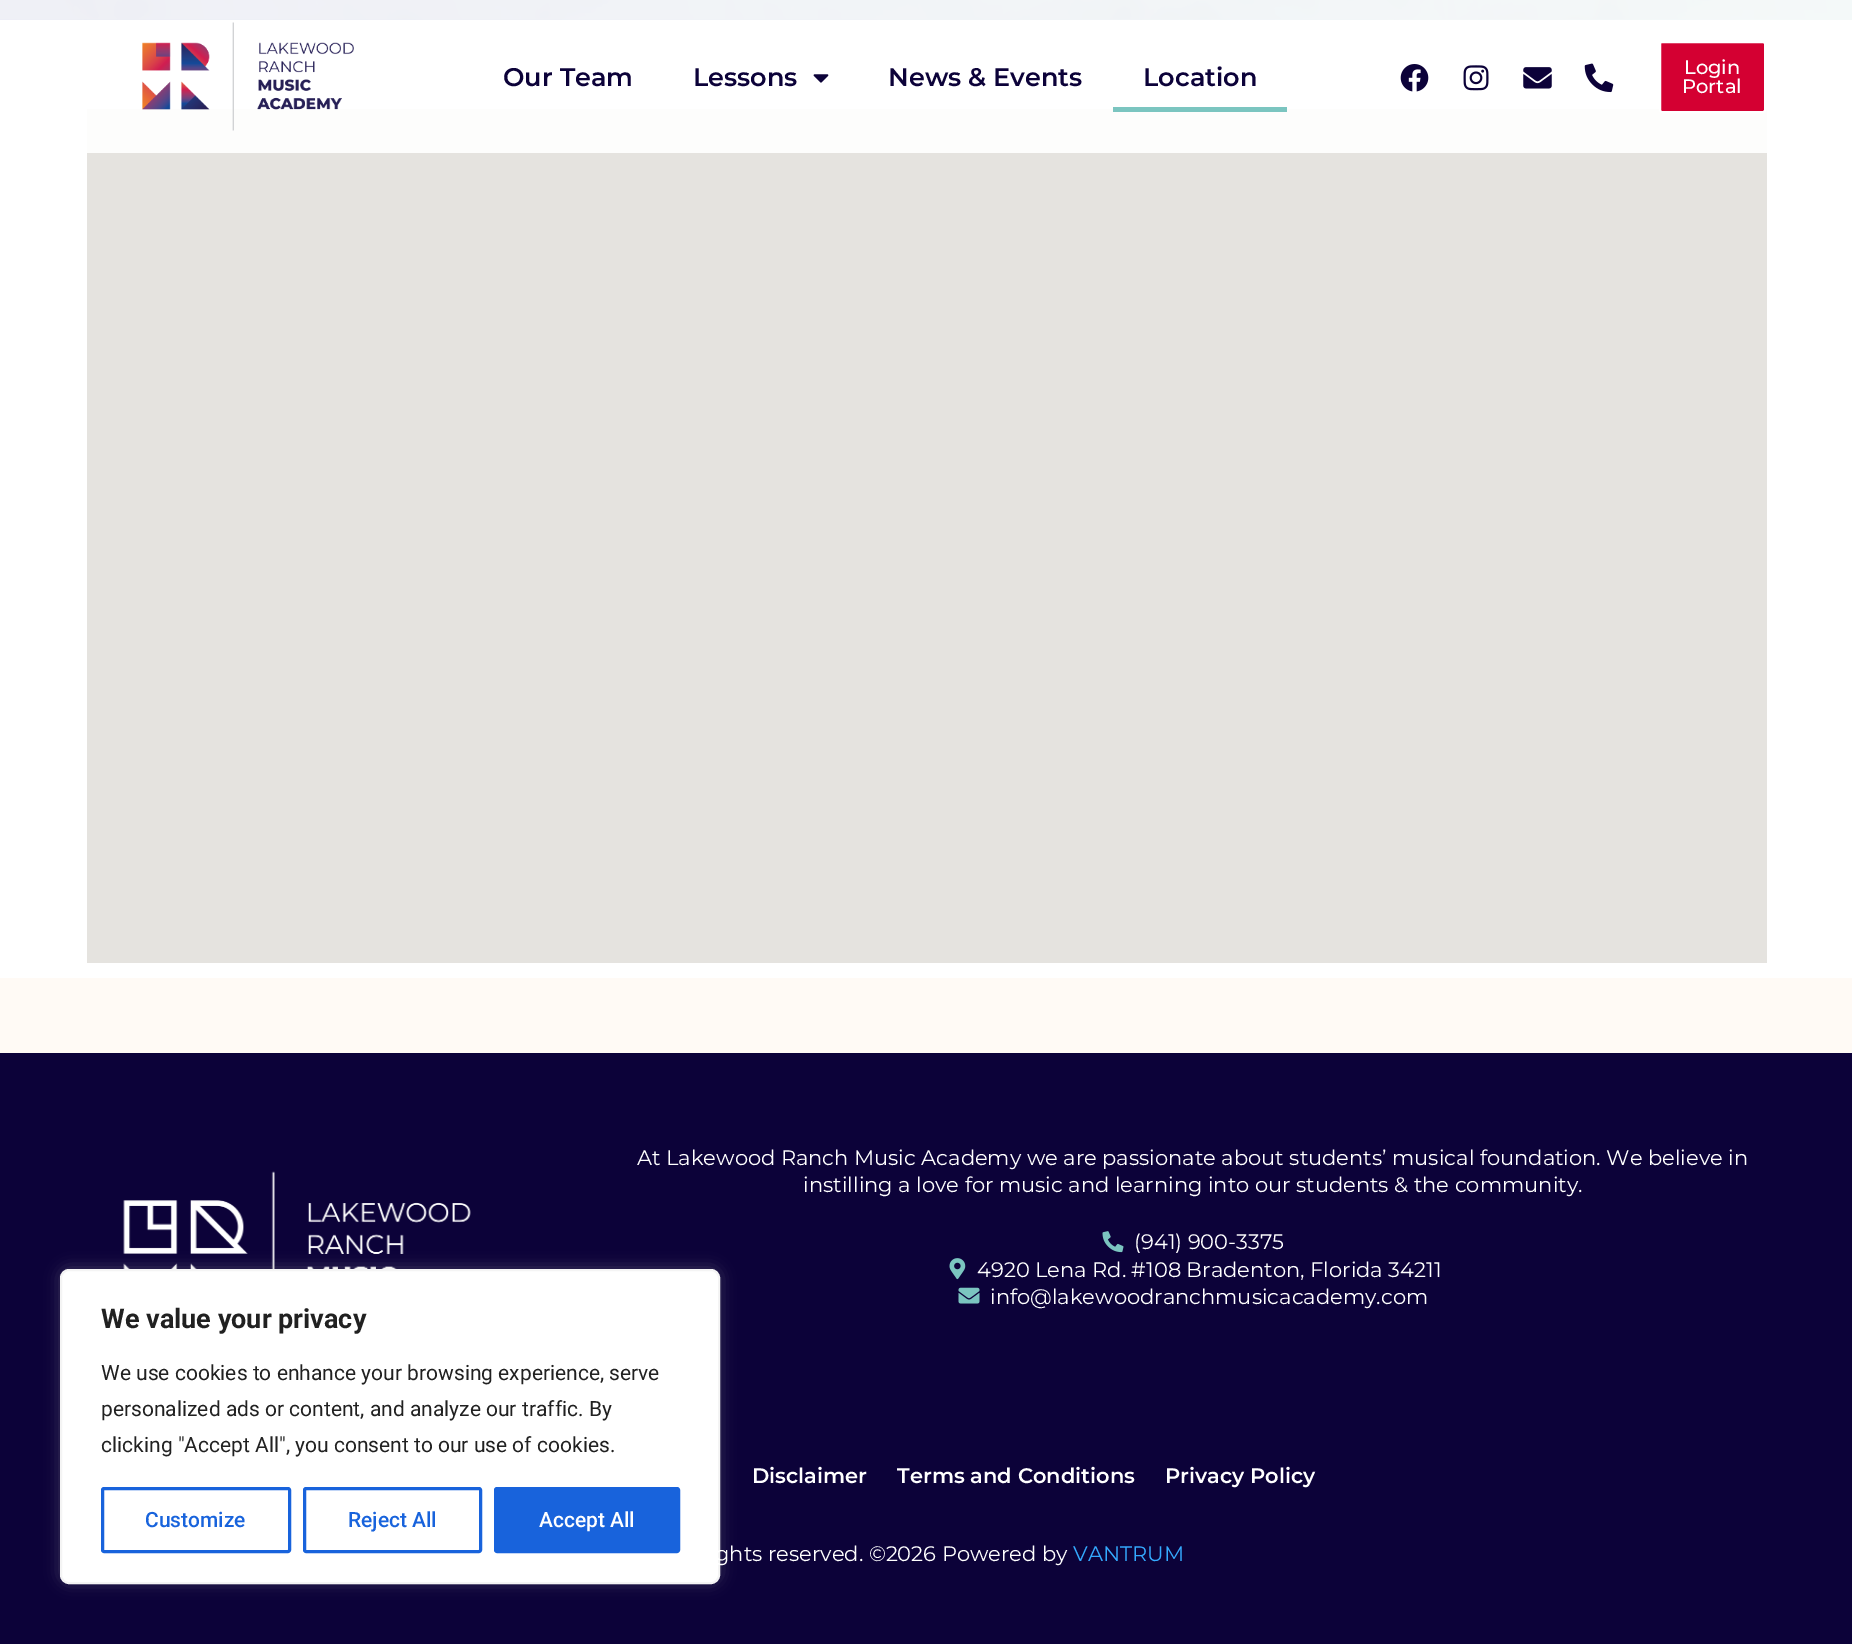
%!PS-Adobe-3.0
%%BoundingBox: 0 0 1852 1644
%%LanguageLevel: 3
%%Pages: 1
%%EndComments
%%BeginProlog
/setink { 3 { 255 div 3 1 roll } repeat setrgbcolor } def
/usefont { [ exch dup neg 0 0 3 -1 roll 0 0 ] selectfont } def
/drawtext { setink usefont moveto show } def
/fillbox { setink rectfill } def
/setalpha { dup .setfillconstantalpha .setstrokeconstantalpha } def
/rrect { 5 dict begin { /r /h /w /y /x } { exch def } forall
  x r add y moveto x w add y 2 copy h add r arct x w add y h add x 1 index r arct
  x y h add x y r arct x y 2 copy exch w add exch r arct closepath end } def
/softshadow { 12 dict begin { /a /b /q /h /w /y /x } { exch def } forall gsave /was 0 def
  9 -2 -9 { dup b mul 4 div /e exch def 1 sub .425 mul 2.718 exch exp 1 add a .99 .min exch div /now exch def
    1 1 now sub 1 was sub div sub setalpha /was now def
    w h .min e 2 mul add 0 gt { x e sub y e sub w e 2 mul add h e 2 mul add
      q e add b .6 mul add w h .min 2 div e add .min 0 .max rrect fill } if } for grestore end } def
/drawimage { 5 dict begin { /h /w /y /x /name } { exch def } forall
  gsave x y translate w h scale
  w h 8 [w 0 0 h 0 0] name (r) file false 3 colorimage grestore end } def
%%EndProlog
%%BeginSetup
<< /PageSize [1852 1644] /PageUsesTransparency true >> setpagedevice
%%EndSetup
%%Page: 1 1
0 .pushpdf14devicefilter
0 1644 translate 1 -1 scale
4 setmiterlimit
0 0 1852 1644 255 255 255 fillbox
gsave 0 0 moveto 1852 0 lineto 1852 20 lineto 0 20 lineto closepath clip newpath
<< /ShadingType 2 /ColorSpace /DeviceRGB /Coords [-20 -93 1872 -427] /Extend [true true] /Function << /FunctionType 2 /Domain [0 1] /C0 [0.925 0.929 0.961] /C1 [0.957 0.98 0.98] /N 1 >> >> shfill grestore
(assets/img1.rgb) 0 0 1852 20 drawimage
87 109 1680 44 253 253 252 fillbox
87 153 1680 810 229 227 223 fillbox
(assets/img2.rgb) 142 22 212 109 drawimage
(Our Team) 503 86 /Montserrat-SemiBold 25.5 12 2 57 drawtext
(Lessons) 693 86 /Montserrat-SemiBold 25.5 12 2 57 drawtext
(assets/img3.rgb) 813 74 16 9 drawimage
(News & Events) 888 86 /Montserrat-SemiBold 25.5 12 2 57 drawtext
(Location) 1143 86 /Montserrat-SemiBold 25.5 12 2 57 drawtext
1113 107 174 5 123 197 192 fillbox
(assets/img4.rgb) 1400 64 29 28 drawimage
(assets/img5.rgb) 1463 65 26 26 drawimage
(assets/img6.rgb) 1523 67 29 22 drawimage
(assets/img7.rgb) 1584 63 30 30 drawimage
212 0 50 setink
1660 42 105 70 2 rrect gsave fill grestore
255 255 255 setink
2 setlinewidth
stroke
(Login) 1684 74 /Montserrat-Medium 19.5 255 255 255 drawtext
(Portal) 1682 93 /Montserrat-Medium 19.5 255 255 255 drawtext
0 1053 1852 591 12 2 57 fillbox
(assets/img8.rgb) 123 1171 348 98 drawimage
172 171 171 setink
60 1268 660 315 9 7.5 0.3 softshadow
255 255 255 setink
61 1270 658 313 8 rrect gsave fill grestore
244 244 244 setink
stroke
(We value your privacy) 101 1328 /Roboto-Bold 27 33 33 33 drawtext
(We use cookies to enhance your browsing experience, serve) 101 1380 /Roboto-Regular 21 33 33 33 drawtext
(personalized ads or content, and analyze our traffic. By) 101 1416 /Roboto-Regular 21 33 33 33 drawtext
(clicking "Accept All", you consent to our use of cookies.) 101 1452 /Roboto-Regular 21 33 33 33 drawtext
24 99 220 setink
3 setlinewidth
102.5 1488.5 187 63 1.5 rrect stroke
(Customize) 145 1527 /Roboto-Medium 21 24 99 220 drawtext
304.5 1488.5 176 63 1.5 rrect stroke
(Reject All) 348 1527 /Roboto-Medium 21 24 99 220 drawtext
495.5 1488.5 183 63 1.5 rrect gsave fill grestore
stroke
(Accept All) 539 1527 /Roboto-Medium 21 255 255 255 drawtext
0 978 1852 75 255 250 245 fillbox
(At Lakewood Ranch Music Academy we are passionate about students’ musical foundation. We believe in) 637 1165 /Montserrat-Regular 21 255 255 255 drawtext
(instilling a love for music and learning into our students & the community.) 803 1192 /Montserrat-Regular 21 255 255 255 drawtext
(assets/img9.rgb) 1102 1231 22 22 drawimage
(\(941\) 900-3375) 1134 1249 /Montserrat-Regular 21 255 255 255 drawtext
(assets/img10.rgb) 949 1258 17 22 drawimage
(4920 Lena Rd. #108 Bradenton, Florida 34211) 977 1277 /Montserrat-Regular 21 255 255 255 drawtext
(assets/img11.rgb) 958 1287 22 17 drawimage
(info@lakewoodranchmusicacademy.com) 990 1304 /Montserrat-Regular 21 255 255 255 drawtext
(Disclaimer) 752 1483 /Montserrat-SemiBold 21 255 255 255 drawtext
(Terms and Conditions) 897 1483 /Montserrat-SemiBold 21 255 255 255 drawtext
(Privacy Policy) 1165 1483 /Montserrat-SemiBold 21 255 255 255 drawtext
(ghts reserved. ©2026 Powered by) 715 1561 /Montserrat-Regular 21 255 255 255 drawtext
(VANTRUM) 1073 1561 /Montserrat-Regular 21 52 170 255 drawtext
.poppdf14devicefilter showpage
%%EOF
